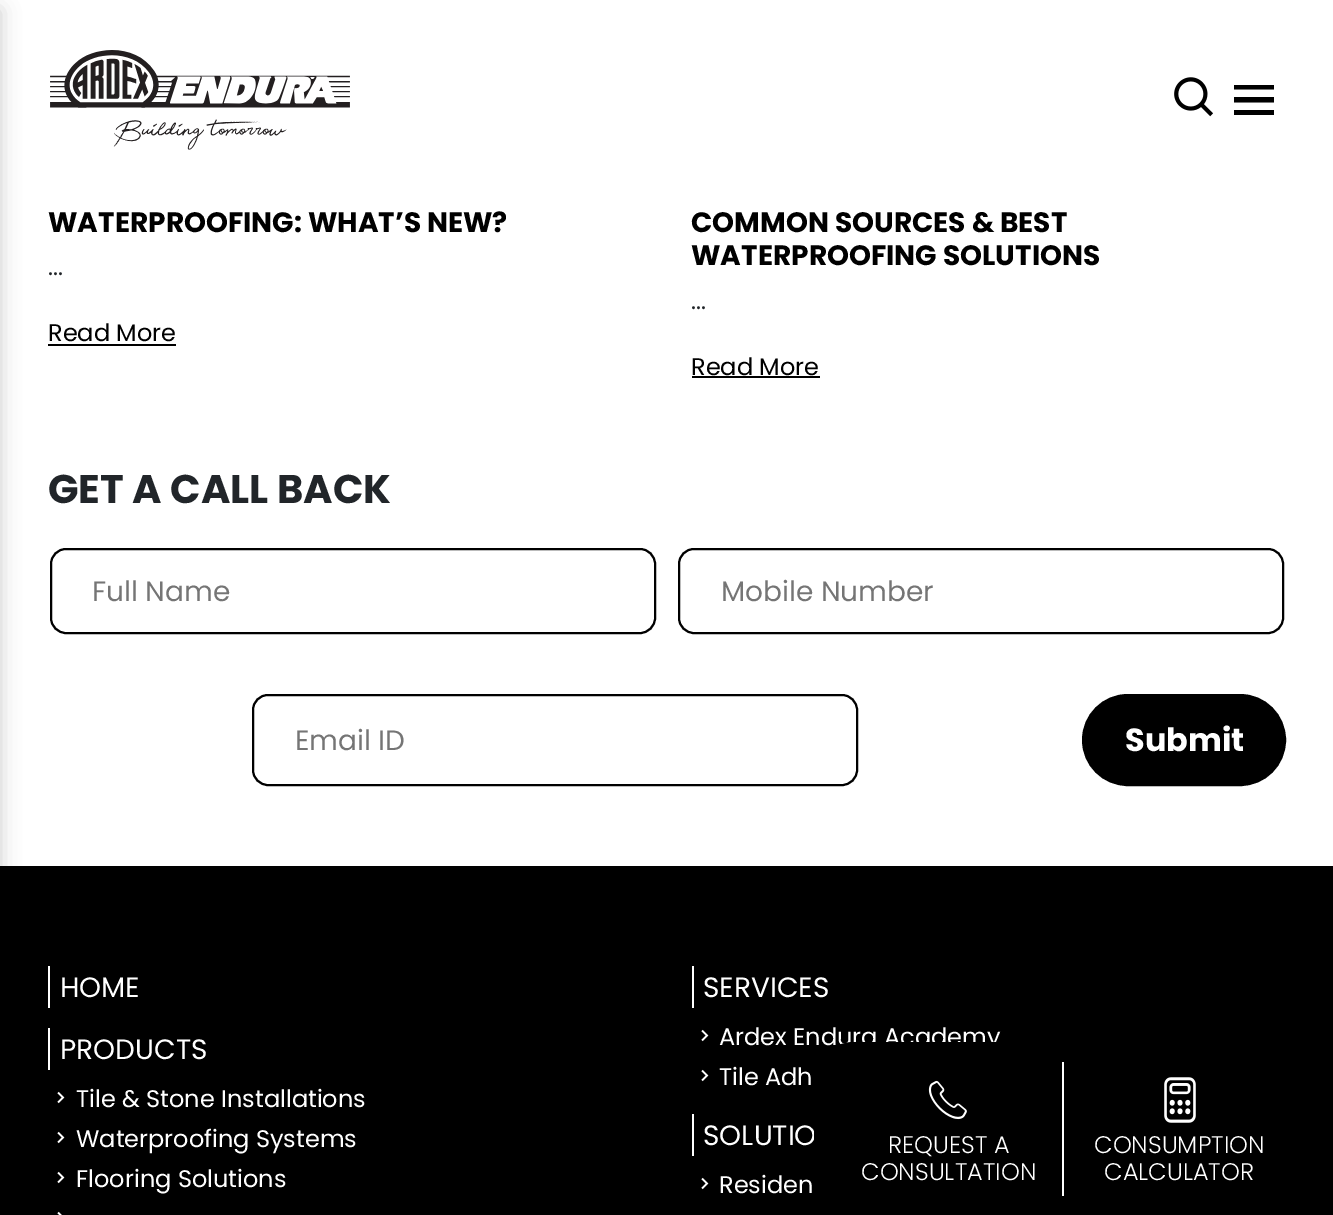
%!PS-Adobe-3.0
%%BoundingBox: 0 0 1333 1215
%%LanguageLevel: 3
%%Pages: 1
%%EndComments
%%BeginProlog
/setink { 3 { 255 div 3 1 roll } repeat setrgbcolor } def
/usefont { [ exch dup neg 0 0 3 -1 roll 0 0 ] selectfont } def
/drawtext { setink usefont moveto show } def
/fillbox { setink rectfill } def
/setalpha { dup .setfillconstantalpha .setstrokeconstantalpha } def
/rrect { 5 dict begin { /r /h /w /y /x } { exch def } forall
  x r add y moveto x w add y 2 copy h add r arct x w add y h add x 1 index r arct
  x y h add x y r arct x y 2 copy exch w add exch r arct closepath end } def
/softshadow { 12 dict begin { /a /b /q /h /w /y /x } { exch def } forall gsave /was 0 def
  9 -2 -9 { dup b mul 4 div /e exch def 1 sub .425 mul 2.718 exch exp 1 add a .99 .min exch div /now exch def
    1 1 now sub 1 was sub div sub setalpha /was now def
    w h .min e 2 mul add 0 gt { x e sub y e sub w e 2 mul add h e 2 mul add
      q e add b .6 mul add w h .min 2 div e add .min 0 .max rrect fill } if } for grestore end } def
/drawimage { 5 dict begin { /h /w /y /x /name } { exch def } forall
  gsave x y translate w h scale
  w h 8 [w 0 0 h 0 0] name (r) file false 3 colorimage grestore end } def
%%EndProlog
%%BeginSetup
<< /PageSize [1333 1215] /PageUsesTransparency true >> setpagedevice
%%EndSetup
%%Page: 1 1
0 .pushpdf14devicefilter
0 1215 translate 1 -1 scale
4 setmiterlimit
0 0 1333 1215 255 255 255 fillbox
0 866 1333 349 0 0 0 fillbox
-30 10 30 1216 0 10 0.2 softshadow
(assets/img1.rgb) 50 50 300 100 drawimage
(assets/img2.rgb) 1174 77 39 40 drawimage
1234 85 moveto 1274 85 lineto 1274 89.5 lineto 1234 89.5 lineto closepath 1234 97 moveto 1274 97 lineto 1274 102.5 lineto 1234 102.5 lineto closepath 1234 110 moveto 1274 110 lineto 1274 115 lineto 1234 115 lineto closepath fill
(WATERPROOFING: WHAT’S NEW?) 48 232 /Poppins-Bold 28 0 0 0 drawtext
(...) 48 275 /Poppins-Regular 24 33 37 41 drawtext
(Read More) 48 341 /Poppins-Regular 24 0 0 0 drawtext
48 344 128 2 0 0 0 fillbox
(COMMON SOURCES & BEST) 691 232 /Poppins-Bold 28 0 0 0 drawtext
(WATERPROOFING SOLUTIONS) 691 265 /Poppins-Bold 28 0 0 0 drawtext
(...) 691 309 /Poppins-Regular 24 33 37 41 drawtext
(Read More) 691 375 /Poppins-Regular 24 0 0 0 drawtext
692 376 128 2 0 0 0 fillbox
(GET A CALL BACK) 48 503 /Poppins-Bold 40 33 37 41 drawtext
0 0 0 setink
2 setlinewidth
51 549 604 84 15 rrect stroke
(Full Name) 92 601 /Poppins-Regular 28 117 117 117 drawtext
0 0 0 setink
679 549 604 84 15 rrect stroke
(Mobile Number) 721 601 /Poppins-Regular 28 117 117 117 drawtext
0 0 0 setink
253 695 604 90 15 rrect stroke
(Email ID) 295 750 /Poppins-Regular 28 117 117 117 drawtext
0 0 0 setink
1083 695 202 90 45 rrect gsave fill grestore
stroke
(Submit) 1125 751 /Poppins-Bold 32 255 255 255 drawtext
48 966 2 42 255 255 255 fillbox
(HOME) 60 997 /Poppins-Regular 28 255 255 255 drawtext
48 1028 2 42 255 255 255 fillbox
(PRODUCTS) 60 1059 /Poppins-Regular 28 255 255 255 drawtext
(assets/img3.rgb) 57 1091 8 13 drawimage
(Tile & Stone Installations) 76 1107 /Poppins-Regular 24 255 255 255 drawtext
(assets/img3.rgb) 57 1131 8 13 drawimage
(Waterproofing Systems) 76 1147 /Poppins-Regular 24 255 255 255 drawtext
(assets/img3.rgb) 57 1171 8 13 drawimage
(Flooring Solutions) 76 1187 /Poppins-Regular 24 255 255 255 drawtext
(assets/img4.rgb) 57 1211 5 4 drawimage
692 966 2 42 255 255 255 fillbox
(SERVICES) 703 997 /Poppins-Regular 28 255 255 255 drawtext
(assets/img3.rgb) 701 1029 8 13 drawimage
(Ardex Endura Academy) 719 1045 /Poppins-Regular 24 255 255 255 drawtext
(assets/img3.rgb) 701 1069 8 13 drawimage
(Tile Adh) 719 1085 /Poppins-Regular 24 255 255 255 drawtext
692 1114 2 42 255 255 255 fillbox
(SOLUTIO) 703 1145 /Poppins-Regular 28 255 255 255 drawtext
(assets/img3.rgb) 701 1177 8 13 drawimage
(Residen) 719 1193 /Poppins-Regular 24 255 255 255 drawtext
0 0 0 setink
854 1042 moveto 1274 1042 lineto 1296 1042 1314 1060 1314 1082 curveto 1314 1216 lineto 814 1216 lineto 814 1082 lineto 814 1060 832 1042 854 1042 curveto closepath fill
1062 1062 2 134 255 255 255 fillbox
(assets/img5.rgb) 928 1080 39 40 drawimage
(REQUEST A) 888 1153 /Poppins-Light 24 255 255 255 drawtext
(CONSULTATION) 861 1180 /Poppins-Light 24 255 255 255 drawtext
(assets/img6.rgb) 1164 1077 32 46 drawimage
(CONSUMPTION) 1094 1153 /Poppins-Light 24 255 255 255 drawtext
(CALCULATOR) 1104 1180 /Poppins-Light 24 255 255 255 drawtext
.poppdf14devicefilter showpage
%%EOF
